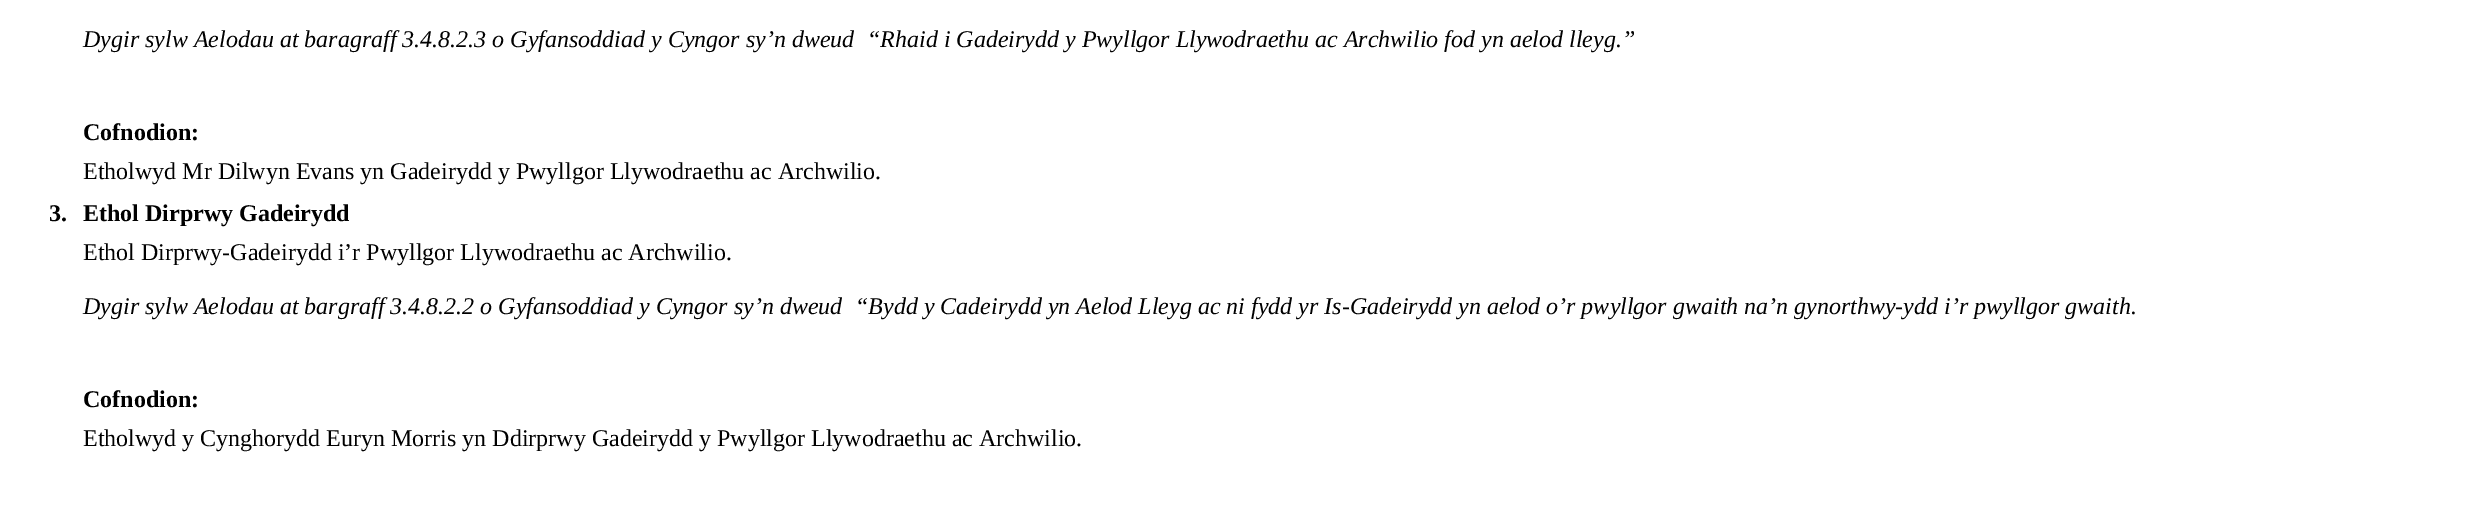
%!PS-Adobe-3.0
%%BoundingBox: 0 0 2473 519
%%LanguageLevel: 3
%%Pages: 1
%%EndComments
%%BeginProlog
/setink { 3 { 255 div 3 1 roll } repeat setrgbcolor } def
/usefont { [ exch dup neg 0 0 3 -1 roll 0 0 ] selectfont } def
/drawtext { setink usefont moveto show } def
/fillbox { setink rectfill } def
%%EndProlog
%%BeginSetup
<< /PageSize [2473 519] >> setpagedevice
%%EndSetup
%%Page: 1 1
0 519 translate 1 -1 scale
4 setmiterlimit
0 0 2473 519 255 255 255 fillbox
(Dygir sylw Aelodau at baragraff 3.4.8.2.3 o Gyfansoddiad y Cyngor sy’n dweud) 83 47 /LiberationSerif-Italic 24 0 0 0 drawtext
(“Rhaid i Gadeirydd y Pwyllgor Llywodraethu ac Archwilio fod yn aelod lleyg.”) 867 47 /LiberationSerif-Italic 24 0 0 0 drawtext
(Cofnodion:) 83 140 /LiberationSerif-Bold 24 0 0 0 drawtext
(Etholwyd Mr Dilwyn Evans yn Gadeirydd y Pwyllgor Llywodraethu ac Archwilio.) 83 179 /LiberationSerif-Regular 24 0 0 0 drawtext
(3.) 49 221 /LiberationSerif-Bold 24 0 0 0 drawtext
(Ethol Dirprwy Gadeirydd) 83 221 /LiberationSerif-Bold 24 0 0 0 drawtext
(Ethol Dirprwy-Gadeirydd i’r Pwyllgor Llywodraethu ac Archwilio.) 83 260 /LiberationSerif-Regular 24 0 0 0 drawtext
(Dygir sylw Aelodau at bargraff 3.4.8.2.2 o Gyfansoddiad y Cyngor sy’n dweud) 83 314 /LiberationSerif-Italic 24 0 0 0 drawtext
(“Bydd y Cadeirydd yn Aelod Lleyg ac ni fydd yr Is-Gadeirydd yn aelod o’r pwyllgor gwaith na’n gynorthwy-ydd i’r pwyllgor gwaith.) 855 314 /LiberationSerif-Italic 24 0 0 0 drawtext
(Cofnodion:) 83 407 /LiberationSerif-Bold 24 0 0 0 drawtext
(Etholwyd y Cynghorydd Euryn Morris yn Ddirprwy Gadeirydd y Pwyllgor Llywodraethu ac Archwilio.) 83 446 /LiberationSerif-Regular 24 0 0 0 drawtext
showpage
%%EOF
